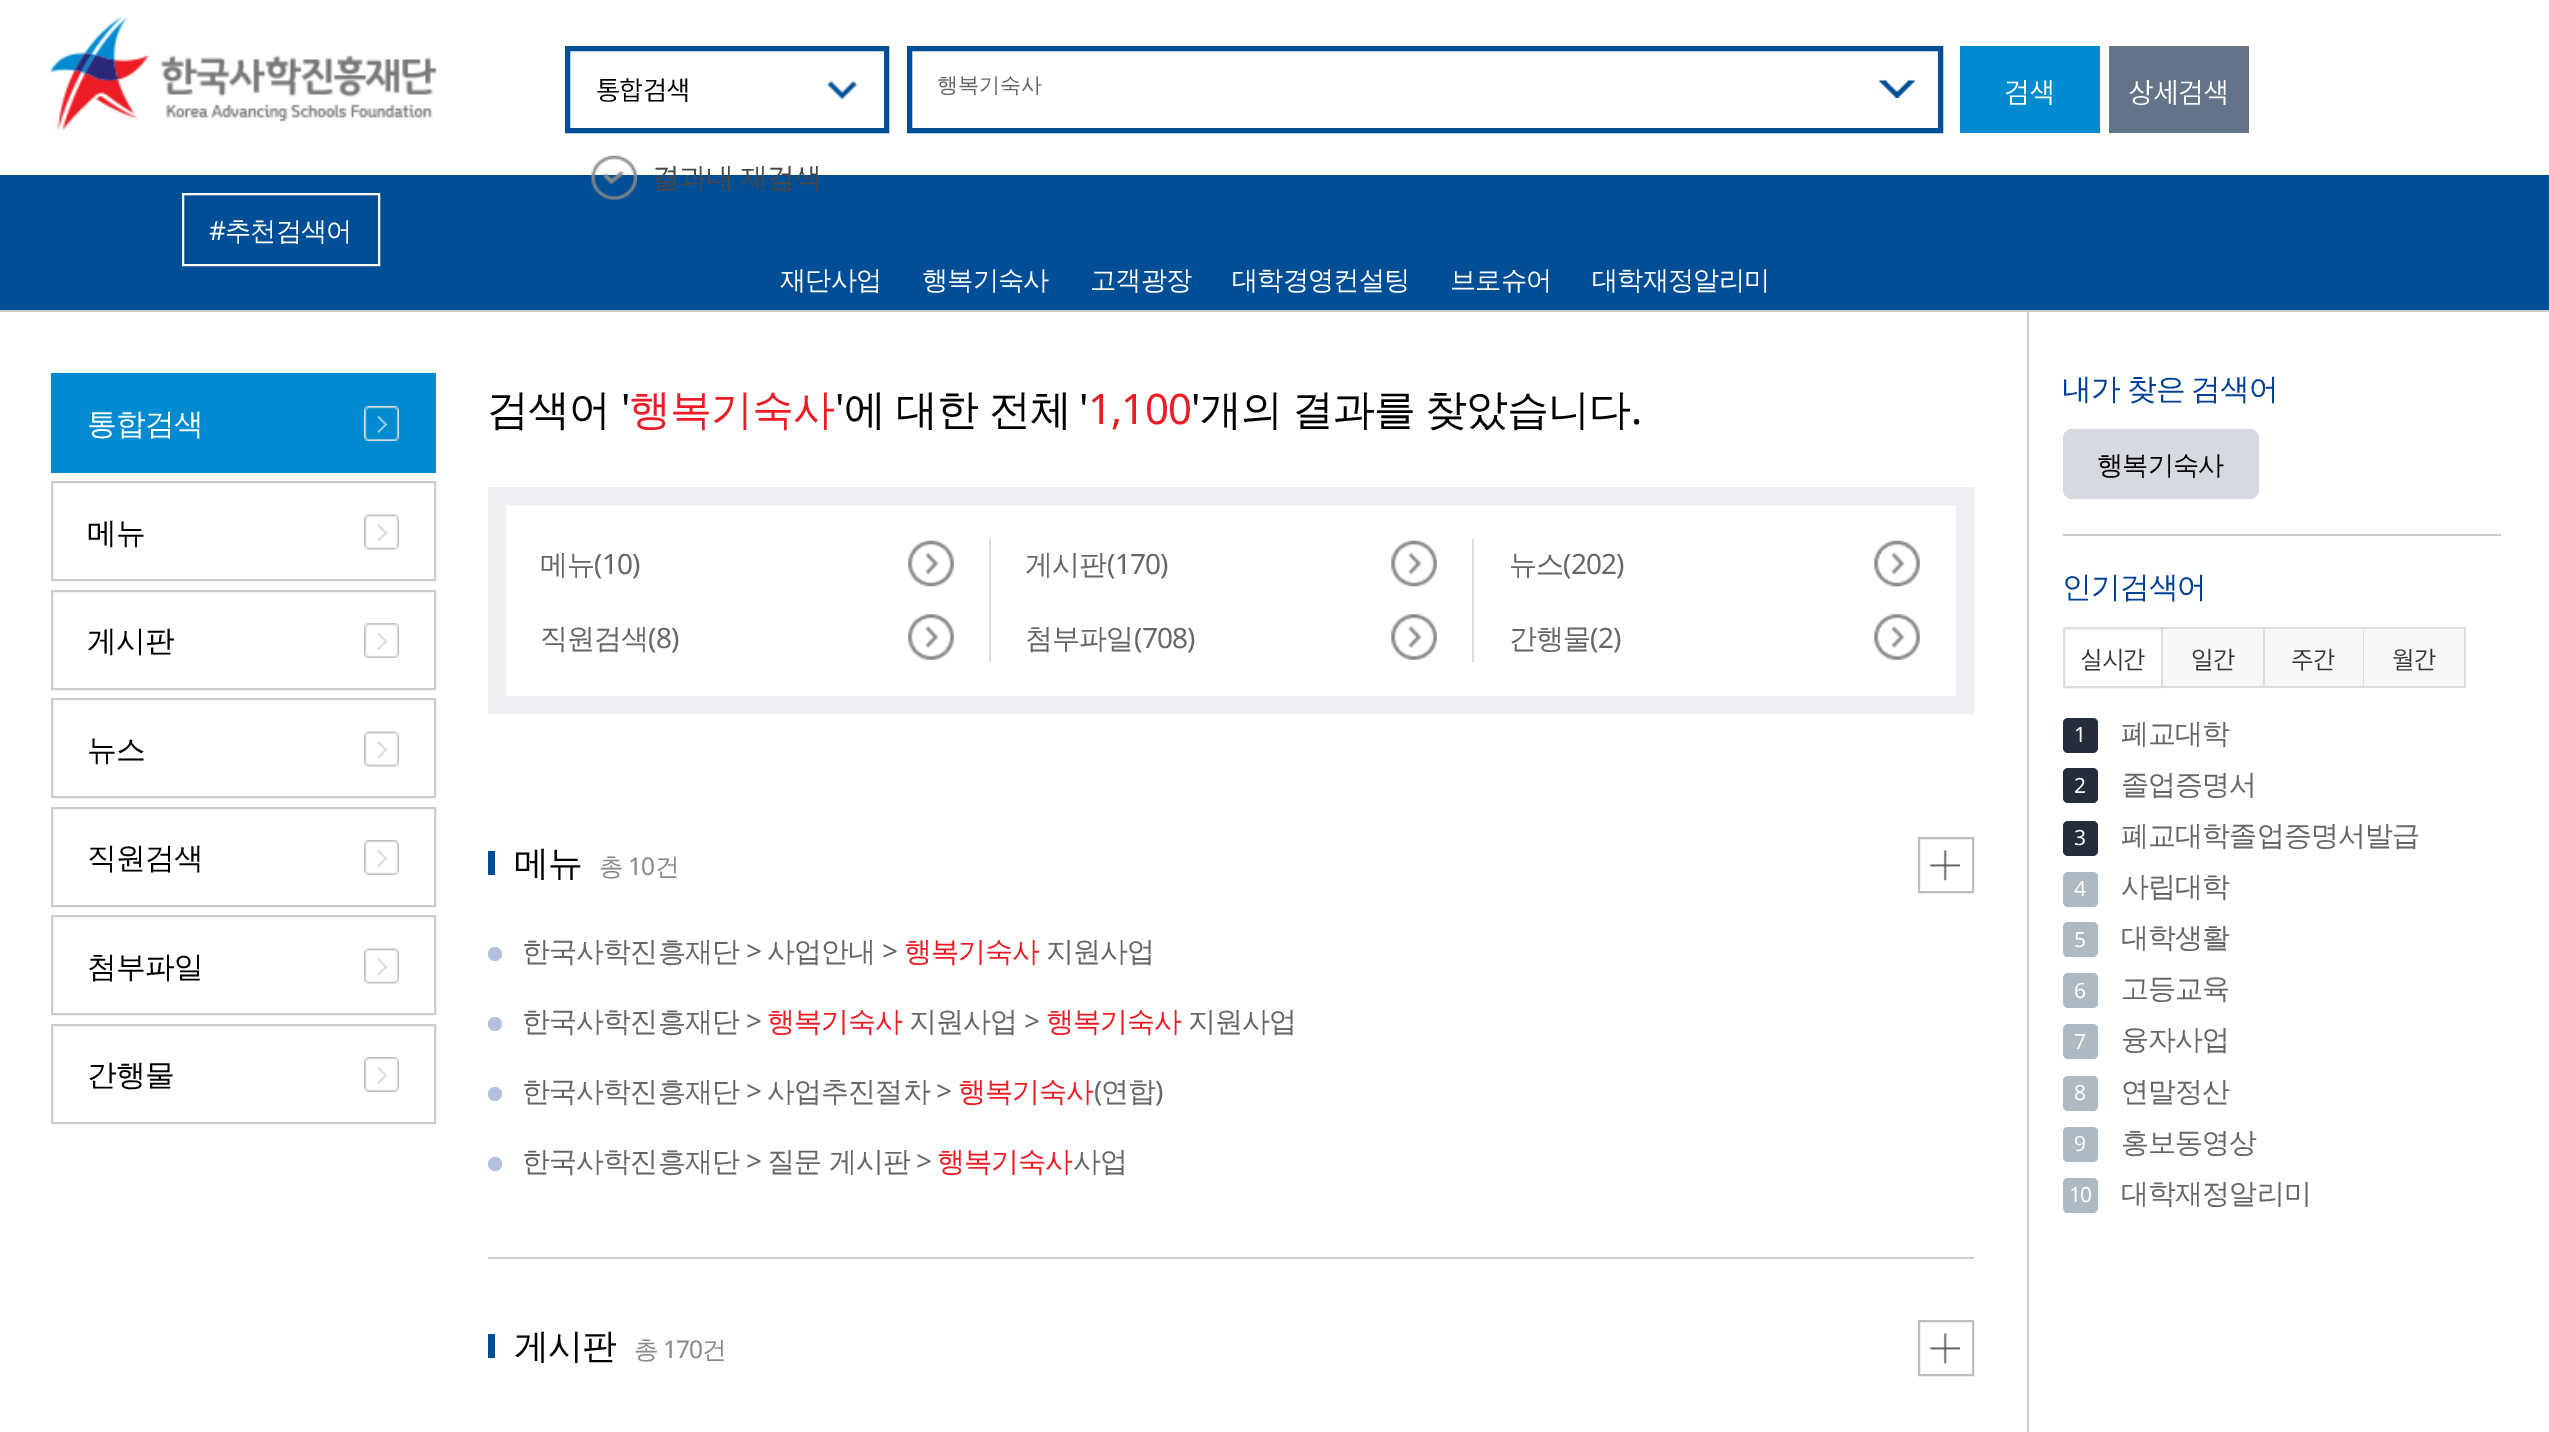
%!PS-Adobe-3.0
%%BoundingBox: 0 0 2549 1432
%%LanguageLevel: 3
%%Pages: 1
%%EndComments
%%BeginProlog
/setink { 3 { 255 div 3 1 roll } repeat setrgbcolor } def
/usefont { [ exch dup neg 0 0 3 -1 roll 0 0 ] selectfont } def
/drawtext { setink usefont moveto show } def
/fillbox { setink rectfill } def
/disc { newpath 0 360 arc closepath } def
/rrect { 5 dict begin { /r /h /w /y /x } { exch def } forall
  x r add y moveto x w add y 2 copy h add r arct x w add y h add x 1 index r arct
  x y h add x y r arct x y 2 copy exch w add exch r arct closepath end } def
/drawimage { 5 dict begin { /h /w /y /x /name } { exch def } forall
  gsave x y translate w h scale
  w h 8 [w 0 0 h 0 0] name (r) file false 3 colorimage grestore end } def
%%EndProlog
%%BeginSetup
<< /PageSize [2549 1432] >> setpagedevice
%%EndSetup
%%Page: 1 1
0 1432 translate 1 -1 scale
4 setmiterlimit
0 0 2549 1432 255 255 255 fillbox
(assets/img1.rgb) 50 17 387 113 drawimage
(assets/img2.rgb) 827 80 31 20 drawimage
0 78 150 setink
5 setlinewidth
567.5 48.5 319 82 rectstroke
/NotoSansKR-Light 26.25 usefont
0 0 0 setink
596 100 moveto -0.9 0 (통합검색) ashow
0 78 150 setink
909.5 48.5 1031 82 rectstroke
(행복기숙사) 937 92 /WenQuanYiZenHei-Medium 21 102 102 102 drawtext
(assets/img3.rgb) 1879 79 36 19 drawimage
1960 46 140 87 0 139 208 fillbox
/NotoSansKR-Light 28 usefont
255 255 255 setink
2004 103 moveto -0.9 0 (검색) ashow
2109 46 140 87 99 116 136 fillbox
255 255 255 setink
2128 103 moveto -0.9 0 (상세검색) ashow
0 175 2549 135 0 78 150 fillbox
(assets/img4.rgb) 591 155 46 45 drawimage
/WenQuanYiZenHei-Medium 28 usefont
73 72 72 setink
652 187 moveto -1 0 32 -0.9 0 (결과내 재검색) awidthshow
255 255 255 setink
2 setlinewidth
183 194 196 71 rectstroke
/NotoSans-Regular 26.25 usefont
209 240 moveto -0.9 0 (#) ashow
/WenQuanYiZenHei-Medium 26.25 usefont
225 240 moveto -0.9 0 (추천검색어) ashow
780 289 moveto -0.9 0 (재단사업) ashow
922 289 moveto -0.9 0 (행복기숙사) ashow
1090 289 moveto -0.9 0 (고객광장) ashow
1232 289 moveto -0.9 0 (대학경영컨설팅) ashow
1450 289 moveto -0.9 0 (브로슈어) ashow
1592 289 moveto -0.9 0 (대학재정알리미) ashow
0 310 2549 2 205 205 205 fillbox
51 373 385 100 0 139 208 fillbox
/WenQuanYiZenHei-Medium 29.75 usefont
255 255 255 setink
87 434 moveto -0.9 0 (통합검색) ashow
(assets/img5.rgb) 364 406 35 35 drawimage
205 205 205 setink
52 482 383 98 rectstroke
0 0 0 setink
87 543 moveto -0.9 0 (메뉴) ashow
(assets/img6.rgb) 364 514 35 36 drawimage
205 205 205 setink
52 591 383 98 rectstroke
0 0 0 setink
87 651 moveto -0.9 0 (게시판) ashow
(assets/img7.rgb) 364 623 35 35 drawimage
205 205 205 setink
52 699 383 98 rectstroke
0 0 0 setink
87 760 moveto -0.9 0 (뉴스) ashow
(assets/img6.rgb) 364 731 35 36 drawimage
205 205 205 setink
52 808 383 98 rectstroke
0 0 0 setink
87 868 moveto -0.9 0 (직원검색) ashow
(assets/img7.rgb) 364 840 35 35 drawimage
205 205 205 setink
52 916 383 98 rectstroke
0 0 0 setink
87 977 moveto -0.9 0 (첨부파일) ashow
(assets/img6.rgb) 364 948 35 36 drawimage
205 205 205 setink
52 1025 383 98 rectstroke
0 0 0 setink
87 1085 moveto -0.9 0 (간행물) ashow
(assets/img7.rgb) 364 1057 35 35 drawimage
2027 312 2 1120 205 205 205 fillbox
/WenQuanYiZenHei-Medium 42 usefont
0 0 0 setink
487 424 moveto -0.9 0 (검색어) ashow
/NotoSans-Regular 42 usefont
621 424 moveto -0.9 0 (') ashow
/WenQuanYiZenHei-Medium 42 usefont
237 28 36 setink
629 424 moveto -0.9 0 (행복기숙사) ashow
/NotoSans-Regular 42 usefont
0 0 0 setink
835 424 moveto -0.9 0 (') ashow
/WenQuanYiZenHei-Medium 42 usefont
844 424 moveto -1 0 32 -0.9 0 (에 대한 전체) awidthshow
/NotoSans-Regular 42 usefont
1079 424 moveto -0.9 0 (') ashow
237 28 36 setink
1088 424 moveto -0.9 0 (1,100) ashow
0 0 0 setink
1191 424 moveto -0.9 0 (') ashow
/WenQuanYiZenHei-Medium 42 usefont
1200 424 moveto -2 0 32 -0.9 0 (개의 결과를 찾았습니다) awidthshow
/NotoSans-Regular 42 usefont
1631 424 moveto -0.9 0 (.) ashow
237 239 245 setink
18 setlinewidth
497 496 1468 209 rectstroke
(assets/img8.rgb) 908 540 46 47 drawimage
/WenQuanYiZenHei-Medium 28 usefont
102 102 102 setink
540 574 moveto -0.9 0 (메뉴) ashow
/NotoSans-Regular 28 usefont
594 574 moveto -0.9 0 (\(10\)) ashow
989 539 2 123 221 221 221 fillbox
(assets/img9.rgb) 1391 540 46 47 drawimage
/WenQuanYiZenHei-Medium 28 usefont
102 102 102 setink
1025 574 moveto -0.9 0 (게시판) ashow
/NotoSans-Regular 28 usefont
1107 574 moveto -0.9 0 (\(170\)) ashow
1472 539 2 123 221 221 221 fillbox
(assets/img9.rgb) 1874 540 46 47 drawimage
/WenQuanYiZenHei-Medium 28 usefont
102 102 102 setink
1509 574 moveto -0.9 0 (뉴스) ashow
/NotoSans-Regular 28 usefont
1563 574 moveto -0.9 0 (\(202\)) ashow
(assets/img10.rgb) 908 614 46 46 drawimage
/WenQuanYiZenHei-Medium 28 usefont
540 648 moveto -0.9 0 (직원검색) ashow
/NotoSans-Regular 28 usefont
648 648 moveto -0.9 0 (\(8\)) ashow
(assets/img11.rgb) 1391 614 46 46 drawimage
/WenQuanYiZenHei-Medium 28 usefont
1025 648 moveto -0.9 0 (첨부파일) ashow
/NotoSans-Regular 28 usefont
1134 648 moveto -0.9 0 (\(708\)) ashow
(assets/img11.rgb) 1874 614 46 46 drawimage
/WenQuanYiZenHei-Medium 28 usefont
1509 648 moveto -0.9 0 (간행물) ashow
/NotoSans-Regular 28 usefont
1590 648 moveto -0.9 0 (\(2\)) ashow
488 851 7 24 0 78 150 fillbox
/WenQuanYiZenHei-Medium 35 usefont
0 0 0 setink
514 875 moveto -0.9 0 (메뉴) ashow
/WenQuanYiZenHei-Medium 24.5 usefont
136 136 136 setink
599 875 moveto -0.9 0 (총) ashow
/NotoSans-Regular 24.5 usefont
628 875 moveto -0.9 0 (10) ashow
/WenQuanYiZenHei-Medium 24.5 usefont
655 875 moveto -0.9 0 (건) ashow
(assets/img12.rgb) 1930 850 30 31 drawimage
189 189 189 setink
2 setlinewidth
1919 838 54 54 rectstroke
180 193 221 setink
495 954 7 disc fill
/WenQuanYiZenHei-Medium 28 usefont
102 102 102 setink
522 961 moveto -0.9 0 (한국사학진흥재단) ashow
/NotoSans-Regular 28 usefont
746 961 moveto -0.9 0 (>) ashow
/WenQuanYiZenHei-Medium 28 usefont
767 961 moveto -0.9 0 (사업안내) ashow
/NotoSans-Regular 28 usefont
882 961 moveto -0.9 0 (>) ashow
/WenQuanYiZenHei-Medium 28 usefont
237 28 36 setink
904 961 moveto -0.9 0 (행복기숙사) ashow
102 102 102 setink
1046 961 moveto -0.9 0 (지원사업) ashow
180 193 221 setink
495 1024 7 disc fill
102 102 102 setink
522 1031 moveto -0.9 0 (한국사학진흥재단) ashow
/NotoSans-Regular 28 usefont
746 1031 moveto -0.9 0 (>) ashow
/WenQuanYiZenHei-Medium 28 usefont
237 28 36 setink
767 1031 moveto -0.9 0 (행복기숙사) ashow
102 102 102 setink
909 1031 moveto -0.9 0 (지원사업) ashow
/NotoSans-Regular 28 usefont
1024 1031 moveto -0.9 0 (>) ashow
/WenQuanYiZenHei-Medium 28 usefont
237 28 36 setink
1046 1031 moveto -0.9 0 (행복기숙사) ashow
102 102 102 setink
1188 1031 moveto -0.9 0 (지원사업) ashow
180 193 221 setink
495 1094 7 disc fill
102 102 102 setink
522 1101 moveto -0.9 0 (한국사학진흥재단) ashow
/NotoSans-Regular 28 usefont
746 1101 moveto -0.9 0 (>) ashow
/WenQuanYiZenHei-Medium 28 usefont
767 1101 moveto -0.9 0 (사업추진절차) ashow
/NotoSans-Regular 28 usefont
936 1101 moveto -0.9 0 (>) ashow
/WenQuanYiZenHei-Medium 28 usefont
237 28 36 setink
958 1101 moveto -0.9 0 (행복기숙사) ashow
/NotoSans-Regular 28 usefont
102 102 102 setink
1094 1101 moveto -0.9 0 (\() ashow
/WenQuanYiZenHei-Medium 28 usefont
1101 1101 moveto -0.9 0 (연합) ashow
/NotoSans-Regular 28 usefont
1155 1101 moveto -0.9 0 (\)) ashow
180 193 221 setink
495 1164 7 disc fill
/WenQuanYiZenHei-Medium 28 usefont
102 102 102 setink
522 1171 moveto -0.9 0 (한국사학진흥재단) ashow
/NotoSans-Regular 28 usefont
746 1171 moveto -0.9 0 (>) ashow
/WenQuanYiZenHei-Medium 28 usefont
767 1171 moveto -0.9 0 (질문 게시판) ashow
/NotoSans-Regular 28 usefont
916 1171 moveto -0.9 0 (>) ashow
/WenQuanYiZenHei-Medium 28 usefont
237 28 36 setink
937 1171 moveto -0.9 0 (행복기숙사) ashow
102 102 102 setink
1073 1171 moveto -0.9 0 (사업) ashow
488 1257 1486 2 205 205 205 fillbox
488 1334 7 24 0 78 150 fillbox
/WenQuanYiZenHei-Medium 35 usefont
0 0 0 setink
514 1358 moveto -0.9 0 (게시판) ashow
/WenQuanYiZenHei-Medium 24.5 usefont
136 136 136 setink
634 1358 moveto -0.9 0 (총) ashow
/NotoSans-Regular 24.5 usefont
663 1358 moveto -0.9 0 (170) ashow
/WenQuanYiZenHei-Medium 24.5 usefont
702 1358 moveto -0.9 0 (건) ashow
(assets/img12.rgb) 1930 1333 30 31 drawimage
189 189 189 setink
1919 1321 54 54 rectstroke
2063 534 438 2 205 205 205 fillbox
/WenQuanYiZenHei-Medium 29.75 usefont
0 64 152 setink
2062 399 moveto -1 0 32 -0.9 0 (내가 찾은 검색어) awidthshow
215 217 225 setink
2063 429 196 70 9 rrect fill
/WenQuanYiZenHei-Medium 26.25 usefont
0 0 0 setink
2097 474 moveto -0.9 0 (행복기숙사) ashow
/WenQuanYiZenHei-Medium 29.75 usefont
0 64 152 setink
2062 597 moveto -0.9 0 (인기검색어) ashow
221 221 221 setink
2064 628 98 59 rectstroke
/NotoSansKR-Light 24.5 usefont
51 51 51 setink
2080 669 moveto -0.9 0 (실시간) ashow
2163 629 100 57 246 248 250 fillbox
2163 627 303 2 221 221 221 fillbox
2263 627 2 61 221 221 221 fillbox
2163 686 102 2 221 221 221 fillbox
51 51 51 setink
2191 669 moveto -0.9 0 (일간) ashow
2265 629 98 57 246 248 250 fillbox
2363 627 1 61 221 221 221 fillbox
2265 686 99 2 221 221 221 fillbox
51 51 51 setink
2291 669 moveto -0.9 0 (주간) ashow
2364 629 100 57 246 248 250 fillbox
2464 627 2 61 221 221 221 fillbox
2364 686 102 2 221 221 221 fillbox
51 51 51 setink
2392 669 moveto -0.9 0 (월간) ashow
37 45 59 setink
2063 718 35 35 5 rrect fill
/NotoSans-Regular 21 usefont
255 255 255 setink
2074 742 moveto -0.9 0 (1) ashow
/WenQuanYiZenHei-Medium 28 usefont
102 102 102 setink
2121 743 moveto -0.9 0 (폐교대학) ashow
37 45 59 setink
2063 768 35 35 5 rrect fill
/NotoSans-Regular 21 usefont
255 255 255 setink
2074 793 moveto -0.9 0 (2) ashow
/WenQuanYiZenHei-Medium 28 usefont
102 102 102 setink
2121 794 moveto -0.9 0 (졸업증명서) ashow
37 45 59 setink
2063 821 35 35 5 rrect fill
/NotoSans-Regular 21 usefont
255 255 255 setink
2074 845 moveto -0.9 0 (3) ashow
/WenQuanYiZenHei-Medium 28 usefont
102 102 102 setink
2121 845 moveto -0.9 0 (폐교대학졸업증명서발급) ashow
174 185 194 setink
2063 872 35 35 5 rrect fill
/NotoSans-Regular 21 usefont
255 255 255 setink
2074 896 moveto -0.9 0 (4) ashow
/WenQuanYiZenHei-Medium 28 usefont
102 102 102 setink
2121 896 moveto -0.9 0 (사립대학) ashow
174 185 194 setink
2063 922 35 35 5 rrect fill
/NotoSans-Regular 21 usefont
255 255 255 setink
2074 947 moveto -0.9 0 (5) ashow
/WenQuanYiZenHei-Medium 28 usefont
102 102 102 setink
2121 947 moveto -0.9 0 (대학생활) ashow
174 185 194 setink
2063 973 35 35 5 rrect fill
/NotoSans-Regular 21 usefont
255 255 255 setink
2074 998 moveto -0.9 0 (6) ashow
/WenQuanYiZenHei-Medium 28 usefont
102 102 102 setink
2121 998 moveto -0.9 0 (고등교육) ashow
174 185 194 setink
2063 1024 35 35 5 rrect fill
/NotoSans-Regular 21 usefont
255 255 255 setink
2074 1049 moveto -0.9 0 (7) ashow
/WenQuanYiZenHei-Medium 28 usefont
102 102 102 setink
2121 1049 moveto -0.9 0 (융자사업) ashow
174 185 194 setink
2063 1076 35 35 5 rrect fill
/NotoSans-Regular 21 usefont
255 255 255 setink
2074 1100 moveto -0.9 0 (8) ashow
/WenQuanYiZenHei-Medium 28 usefont
102 102 102 setink
2121 1101 moveto -0.9 0 (연말정산) ashow
174 185 194 setink
2063 1127 35 35 5 rrect fill
/NotoSans-Regular 21 usefont
255 255 255 setink
2074 1151 moveto -0.9 0 (9) ashow
/WenQuanYiZenHei-Medium 28 usefont
102 102 102 setink
2121 1152 moveto -0.9 0 (홍보동영상) ashow
174 185 194 setink
2063 1178 35 35 5 rrect fill
/NotoSans-Regular 21 usefont
255 255 255 setink
2069 1202 moveto -0.9 0 (10) ashow
/WenQuanYiZenHei-Medium 28 usefont
102 102 102 setink
2121 1203 moveto -0.9 0 (대학재정알리미) ashow
showpage
%%EOF
